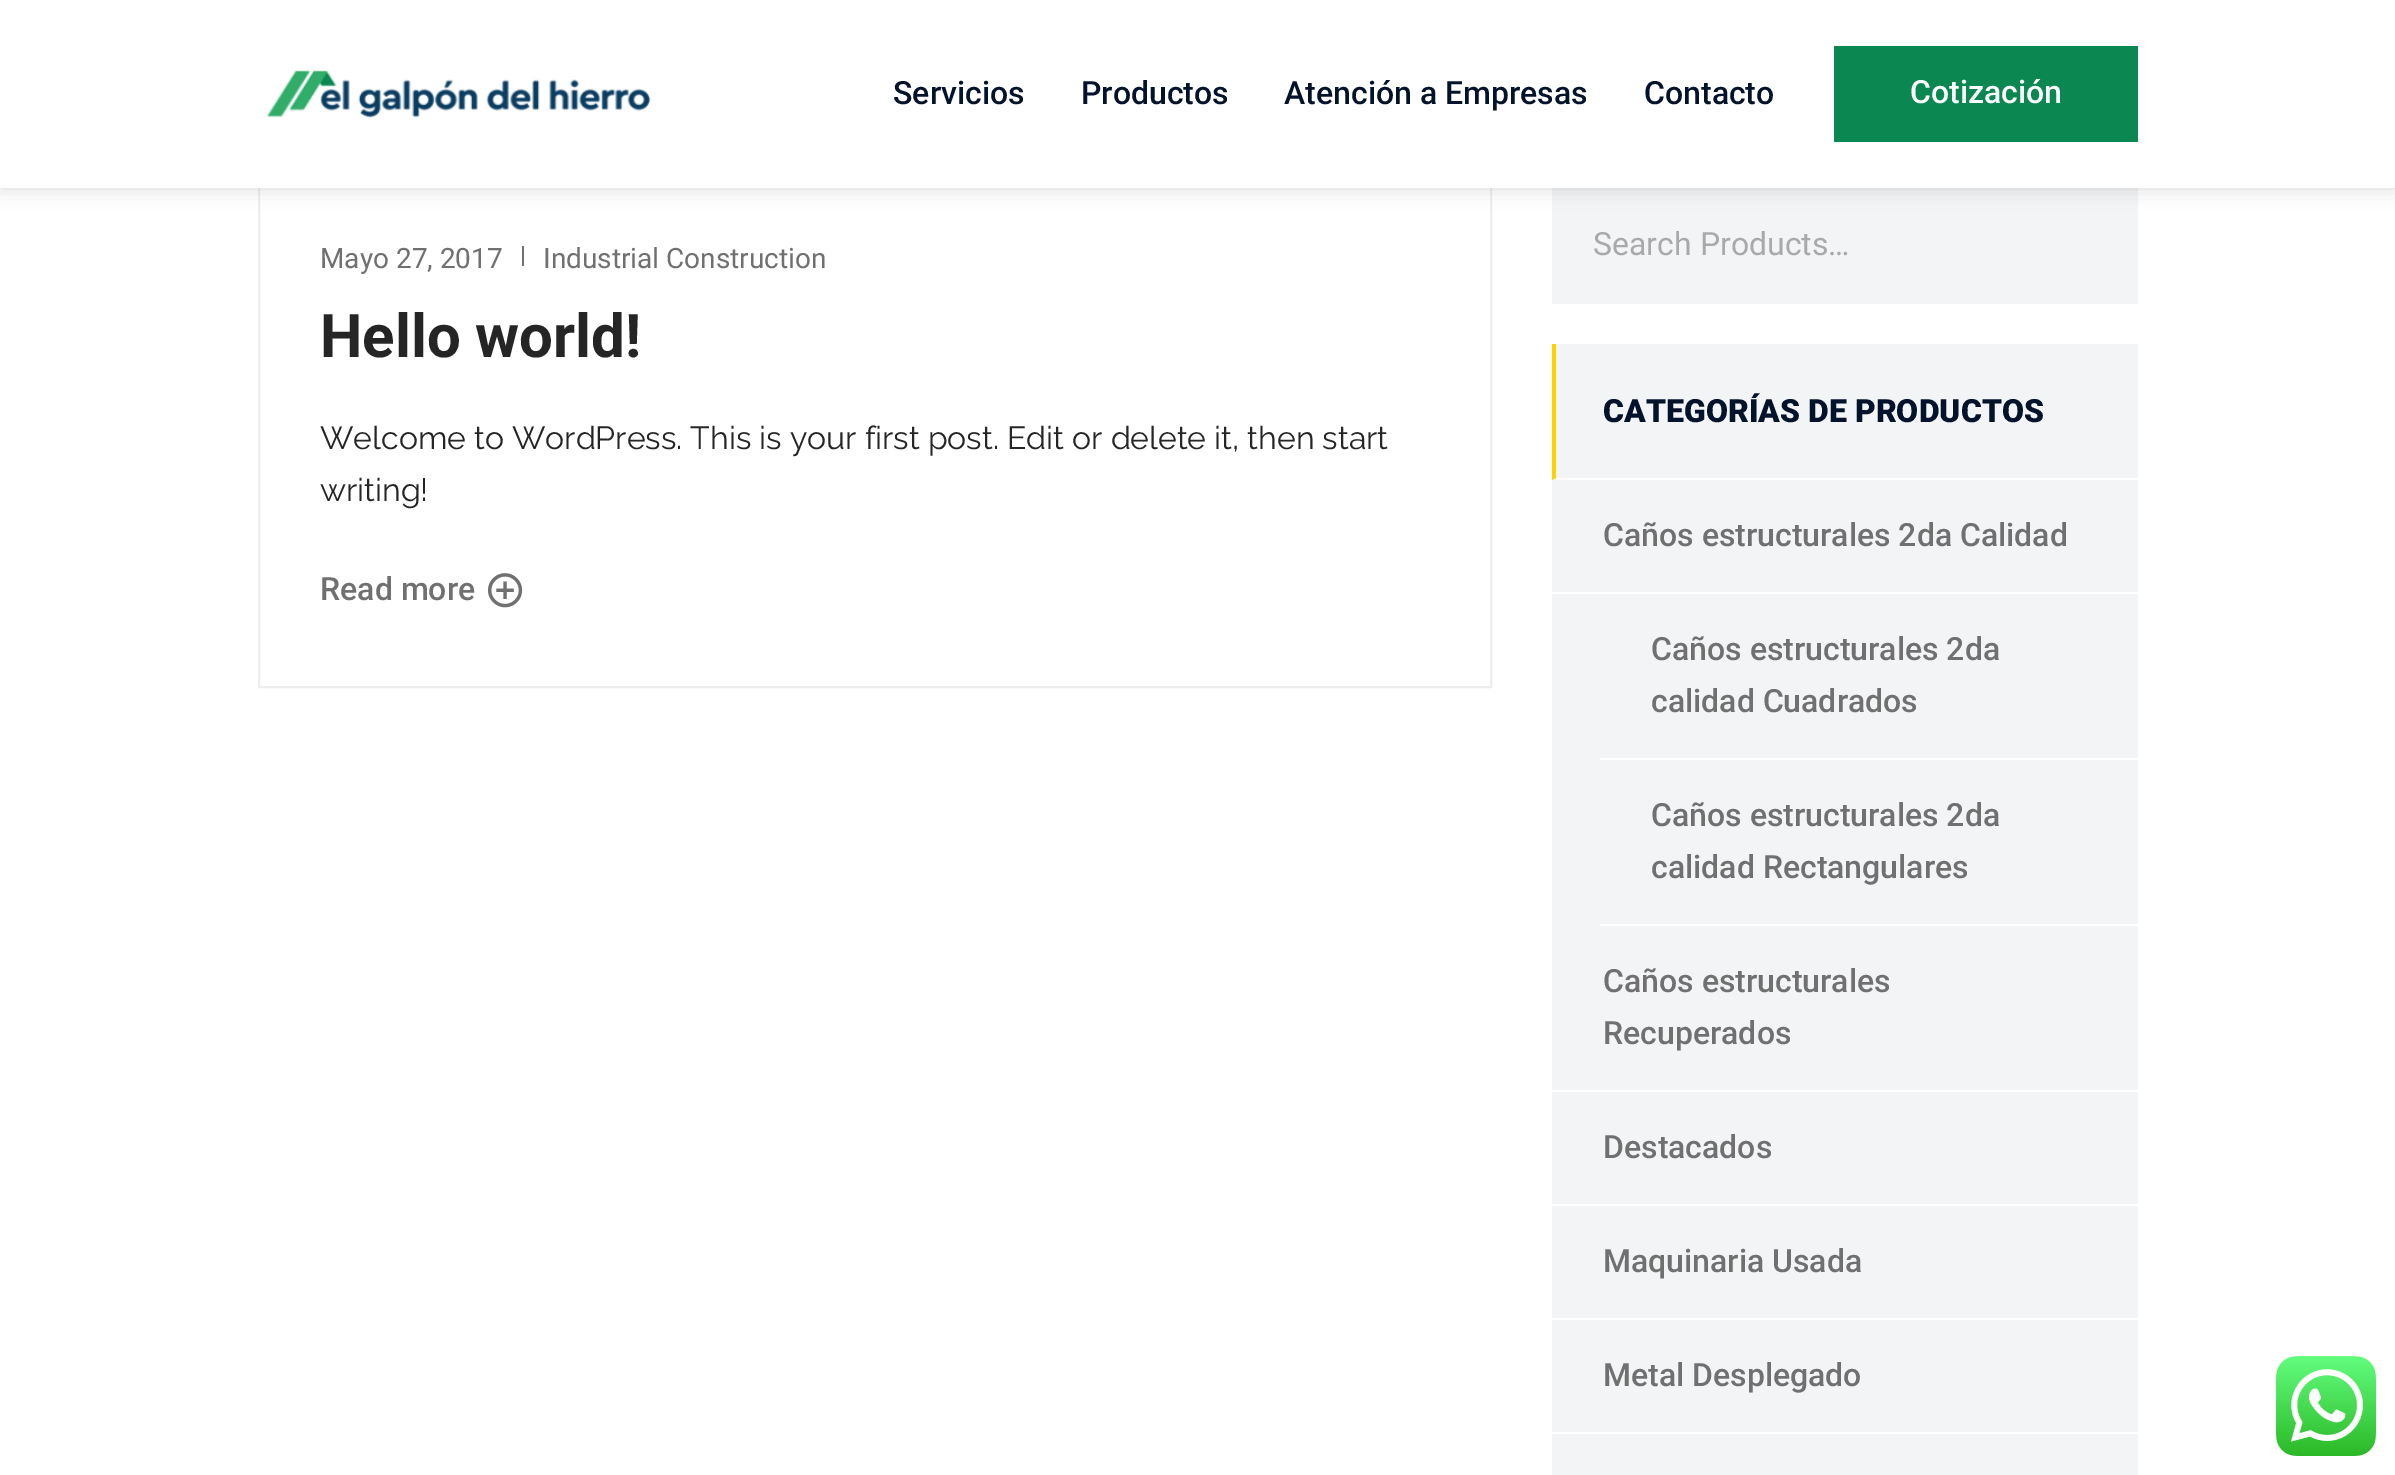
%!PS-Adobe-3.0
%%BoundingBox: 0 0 2395 1475
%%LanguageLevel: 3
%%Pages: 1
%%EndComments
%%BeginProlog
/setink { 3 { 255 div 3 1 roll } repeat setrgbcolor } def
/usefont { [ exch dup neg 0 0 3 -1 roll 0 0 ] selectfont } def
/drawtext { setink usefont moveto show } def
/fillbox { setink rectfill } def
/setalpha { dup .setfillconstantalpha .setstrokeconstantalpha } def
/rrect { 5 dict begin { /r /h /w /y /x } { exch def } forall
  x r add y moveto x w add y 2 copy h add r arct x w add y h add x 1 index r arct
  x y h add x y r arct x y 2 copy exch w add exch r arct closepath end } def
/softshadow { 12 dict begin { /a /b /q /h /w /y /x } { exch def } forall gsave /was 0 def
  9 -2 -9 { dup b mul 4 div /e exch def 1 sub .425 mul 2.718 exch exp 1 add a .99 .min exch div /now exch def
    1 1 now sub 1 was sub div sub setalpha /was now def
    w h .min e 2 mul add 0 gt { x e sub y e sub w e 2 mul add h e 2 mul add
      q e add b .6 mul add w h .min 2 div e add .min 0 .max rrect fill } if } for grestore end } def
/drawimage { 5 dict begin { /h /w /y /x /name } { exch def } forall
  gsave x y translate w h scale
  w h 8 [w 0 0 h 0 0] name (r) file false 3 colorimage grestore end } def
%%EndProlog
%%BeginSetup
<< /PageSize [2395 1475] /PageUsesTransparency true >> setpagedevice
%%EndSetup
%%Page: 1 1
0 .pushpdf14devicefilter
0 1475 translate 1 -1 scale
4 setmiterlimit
0 0 2395 1475 255 255 255 fillbox
238 238 238 setink
2 setlinewidth
259 185 1232 502 rectstroke
1552 188 586 116 242 244 246 fillbox
0 0 0 setink
0 0 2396 188 0 10 0.15 softshadow
0 0 2395 188 255 255 255 fillbox
(assets/img1.rgb) 267 70 384 48 drawimage
(Servicios) 893 104 /Roboto-Medium 32 3 19 43 drawtext
(Productos) 1081 104 /Roboto-Medium 32 3 19 43 drawtext
(Atención a Empresas) 1284 104 /Roboto-Medium 32 3 19 43 drawtext
(Contacto) 1644 104 /Roboto-Medium 32 3 19 43 drawtext
1834 46 304 96 11 135 81 fillbox
(Cotización) 1910 103 /Roboto-Medium 32 255 255 255 drawtext
(Mayo 27, 2017) 320 268 /Roboto-Regular 28 112 112 112 drawtext
522 246 2 20 112 112 112 fillbox
(Industrial Construction) 543 268 /Roboto-Regular 28 112 112 112 drawtext
(Hello world!) 320 357 /Roboto-Bold 60 37 37 37 drawtext
(Welcome to WordPress. This is your first post. Edit or delete it, then start) 320 449 /Raleway-Regular 32 37 37 37 drawtext
(writing!) 320 501 /Raleway-Regular 32 37 37 37 drawtext
(Read more) 320 600 /Roboto-Medium 32 112 112 112 drawtext
(assets/img2.rgb) 488 573 35 35 drawimage
(Search Products…) 1593 255 /Roboto-Regular 32 169 169 169 drawtext
1552 344 586 1131 242 244 246 fillbox
255 255 255 setink
2138 480 moveto 1552 480 lineto 1556 478 lineto 2138 478 lineto closepath fill
255 209 0 setink
1552 480 moveto 1552 344 lineto 1556 344 lineto 1556 478 lineto closepath fill
(CATEGORÍAS DE PRODUCTOS) 1603 422 /Roboto-Black 32 3 19 43 drawtext
1552 592 586 2 255 255 255 fillbox
(Caños estructurales 2da Calidad) 1603 546 /Roboto-Medium 32 112 112 112 drawtext
1600 758 538 2 255 255 255 fillbox
(Caños estructurales 2da) 1651 660 /Roboto-Medium 32 112 112 112 drawtext
(calidad Cuadrados) 1651 712 /Roboto-Medium 32 112 112 112 drawtext
1600 924 538 2 255 255 255 fillbox
(Caños estructurales 2da) 1651 826 /Roboto-Medium 32 112 112 112 drawtext
(calidad Rectangulares) 1651 878 /Roboto-Medium 32 112 112 112 drawtext
1552 1090 586 2 255 255 255 fillbox
(Caños estructurales) 1603 992 /Roboto-Medium 32 112 112 112 drawtext
(Recuperados) 1603 1044 /Roboto-Medium 32 112 112 112 drawtext
1552 1204 586 2 255 255 255 fillbox
(Destacados) 1603 1158 /Roboto-Medium 32 112 112 112 drawtext
1552 1318 586 2 255 255 255 fillbox
(Maquinaria Usada) 1603 1272 /Roboto-Medium 32 112 112 112 drawtext
1552 1432 586 2 255 255 255 fillbox
(Metal Desplegado) 1603 1386 /Roboto-Medium 32 112 112 112 drawtext
(assets/img3.rgb) 2276 1356 100 100 drawimage
.poppdf14devicefilter showpage
%%EOF
